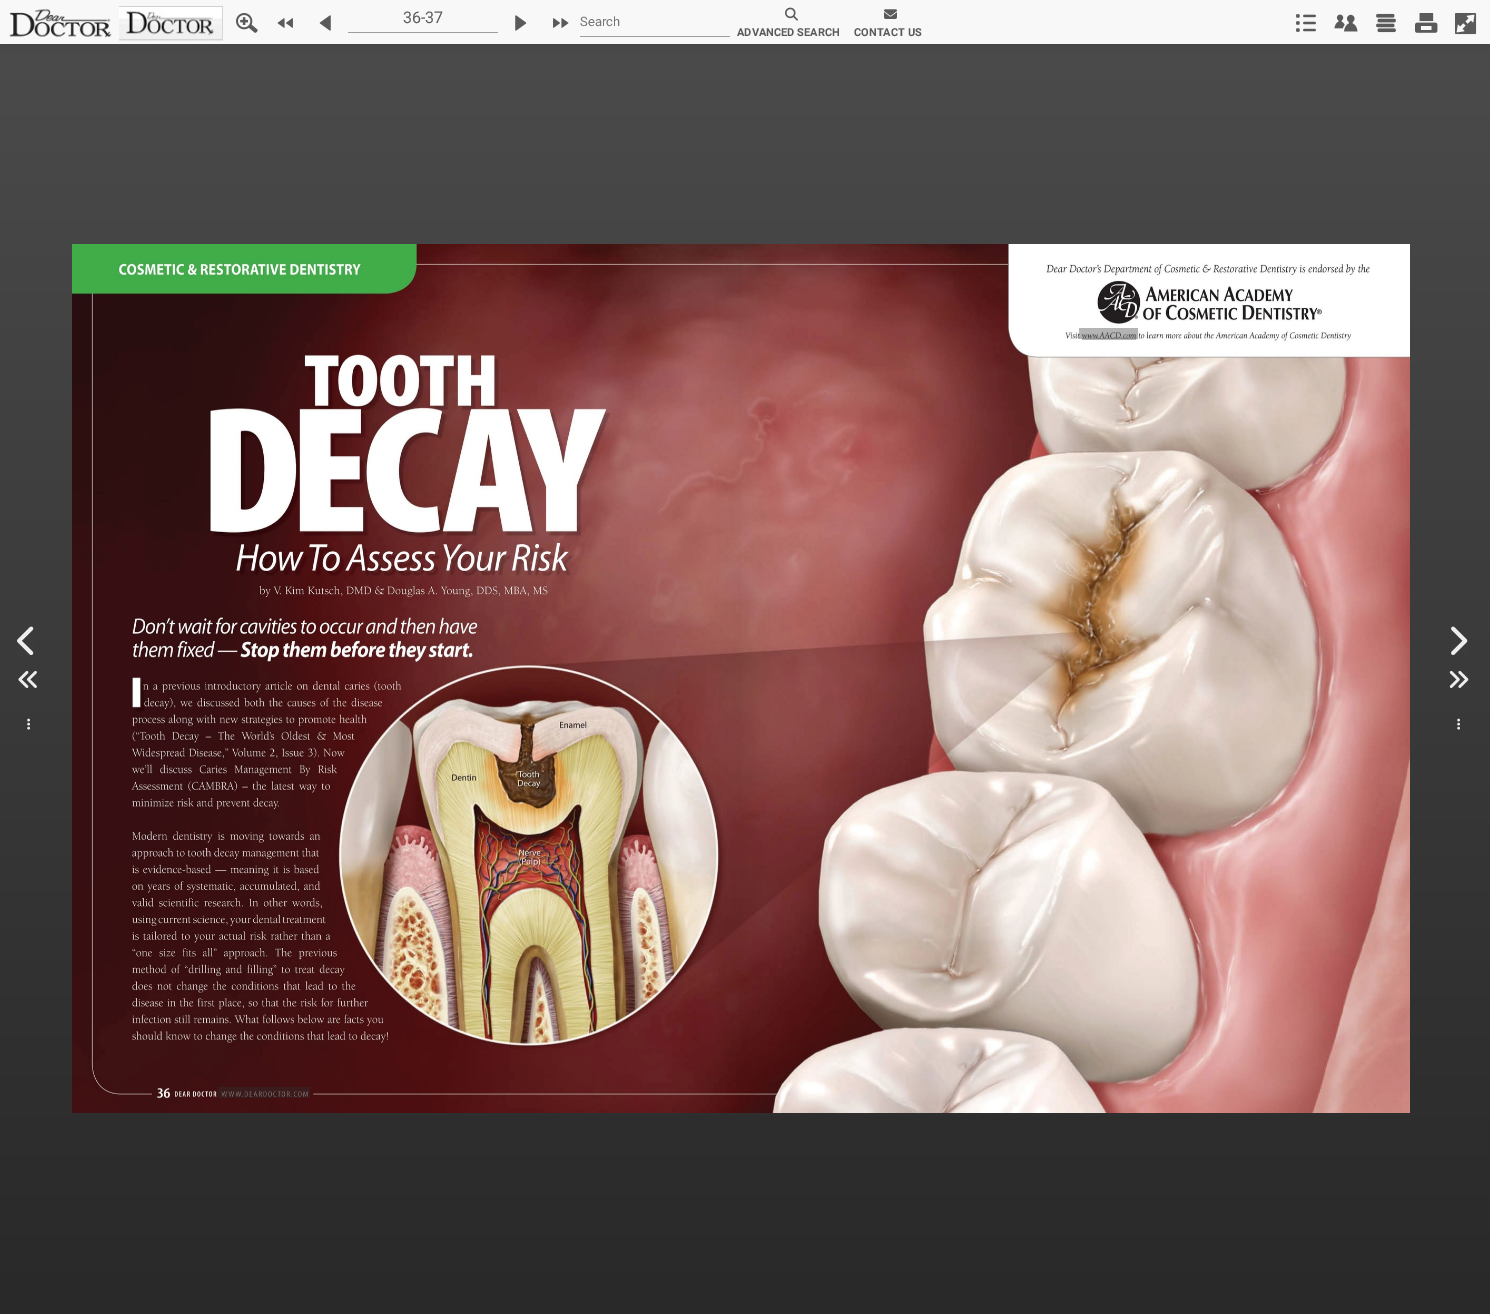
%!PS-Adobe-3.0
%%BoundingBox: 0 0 1490 1314
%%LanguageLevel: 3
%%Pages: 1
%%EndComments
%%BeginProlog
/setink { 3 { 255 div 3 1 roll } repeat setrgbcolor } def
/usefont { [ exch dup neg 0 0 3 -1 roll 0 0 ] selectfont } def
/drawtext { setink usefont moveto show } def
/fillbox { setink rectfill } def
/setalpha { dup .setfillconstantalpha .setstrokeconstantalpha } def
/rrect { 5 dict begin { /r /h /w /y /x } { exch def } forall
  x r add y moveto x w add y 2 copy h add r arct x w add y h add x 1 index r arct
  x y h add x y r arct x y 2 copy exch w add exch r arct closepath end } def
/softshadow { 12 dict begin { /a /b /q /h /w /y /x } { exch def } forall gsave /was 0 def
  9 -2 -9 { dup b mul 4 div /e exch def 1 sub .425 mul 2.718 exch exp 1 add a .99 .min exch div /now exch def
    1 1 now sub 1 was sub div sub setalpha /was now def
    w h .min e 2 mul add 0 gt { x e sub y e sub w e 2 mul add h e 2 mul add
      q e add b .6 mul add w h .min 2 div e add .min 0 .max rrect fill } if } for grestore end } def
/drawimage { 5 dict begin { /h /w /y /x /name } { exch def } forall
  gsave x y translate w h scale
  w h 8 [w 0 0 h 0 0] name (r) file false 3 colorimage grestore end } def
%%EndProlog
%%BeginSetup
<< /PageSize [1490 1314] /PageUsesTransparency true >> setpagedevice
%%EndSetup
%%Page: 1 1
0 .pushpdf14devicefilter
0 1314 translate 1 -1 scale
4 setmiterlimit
0 0 1490 1314 255 255 255 fillbox
gsave 0 44 moveto 1490 44 lineto 1490 1314 lineto 0 1314 lineto closepath clip newpath
<< /ShadingType 2 /ColorSpace /DeviceRGB /Coords [745 0 745 1314] /Extend [true true] /Function << /FunctionType 2 /Domain [0 1] /C0 [0.298 0.298 0.298] /C1 [0.161 0.161 0.161] /N 1 >> >> shfill grestore
0 0 0 setink
0 0 1490 44 0 7 0.14 softshadow
0 0 1490 44 248 248 248 fillbox
(assets/img1.rgb) 9 9 103 29 drawimage
(assets/img2.rgb) 119 6 104 35 drawimage
(assets/img3.rgb) 236 13 22 20 drawimage
(assets/img4.rgb) 277 18 16 10 drawimage
(assets/img5.rgb) 319 15 12 16 drawimage
348 32 150 1 158 158 158 fillbox
(36-37) 403 23 /Roboto-Regular 16 90 90 90 drawtext
(assets/img6.rgb) 515 15 12 16 drawimage
(assets/img7.rgb) 553 18 16 10 drawimage
580 36 150 1 158 158 158 fillbox
(Search) 580 26 /Roboto-Regular 13 117 117 117 drawtext
(assets/img8.rgb) 785 7 13 14 drawimage
(ADVANCED SEARCH) 737 36 /Roboto-Bold 11 90 90 90 drawtext
(assets/img9.rgb) 884 9 13 10 drawimage
(CONTACT US) 854 36 /Roboto-Bold 11 90 90 90 drawtext
(assets/img10.rgb) 1296 14 20 18 drawimage
(assets/img11.rgb) 1334 14 24 18 drawimage
(assets/img12.rgb) 1376 13 20 20 drawimage
(assets/img13.rgb) 1415 13 23 20 drawimage
(assets/img14.rgb) 1455 13 22 22 drawimage
(assets/img15.rgb) 17 626 17 29 drawimage
(assets/img16.rgb) 18 670 19 18 drawimage
(assets/img17.rgb) 27 718 3 12 drawimage
(assets/img18.rgb) 72 244 669 869 drawimage
(assets/img19.rgb) 72 244 669 869 drawimage
(assets/img20.rgb) 72 244 669 869 drawimage
0.4 setalpha
218 1087 92 11 47 47 47 fillbox
1 setalpha
(assets/img23.rgb) 741 263 669 850 drawimage
(assets/img21.rgb) 741 244 669 869 drawimage
(assets/img22.rgb) 741 244 669 869 drawimage
0.4 setalpha
1079 328 59 11 67 67 67 fillbox
1 setalpha
(assets/img24.rgb) 1451 626 17 29 drawimage
(assets/img25.rgb) 1449 670 20 18 drawimage
(assets/img17.rgb) 1457 718 3 12 drawimage
.poppdf14devicefilter showpage
%%EOF
